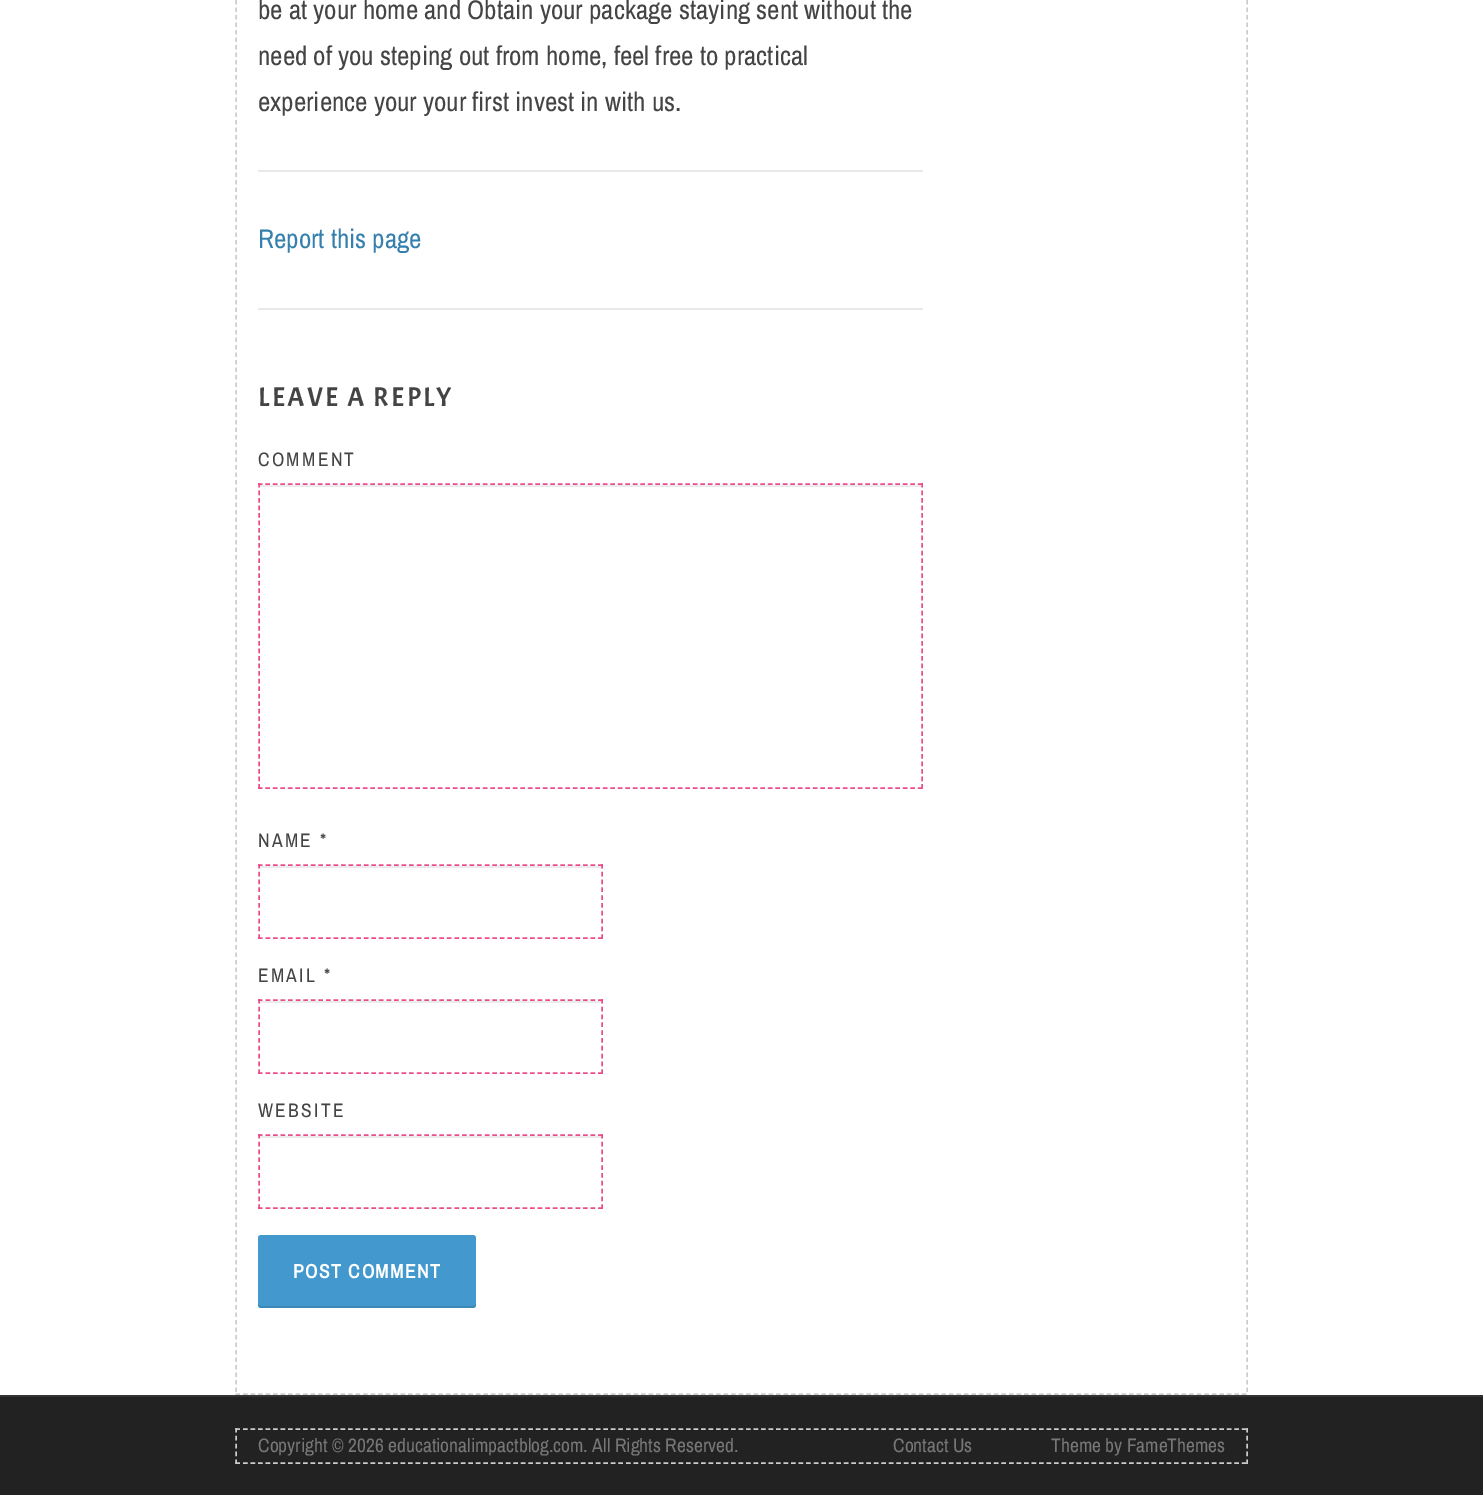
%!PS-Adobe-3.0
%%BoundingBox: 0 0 1483 1495
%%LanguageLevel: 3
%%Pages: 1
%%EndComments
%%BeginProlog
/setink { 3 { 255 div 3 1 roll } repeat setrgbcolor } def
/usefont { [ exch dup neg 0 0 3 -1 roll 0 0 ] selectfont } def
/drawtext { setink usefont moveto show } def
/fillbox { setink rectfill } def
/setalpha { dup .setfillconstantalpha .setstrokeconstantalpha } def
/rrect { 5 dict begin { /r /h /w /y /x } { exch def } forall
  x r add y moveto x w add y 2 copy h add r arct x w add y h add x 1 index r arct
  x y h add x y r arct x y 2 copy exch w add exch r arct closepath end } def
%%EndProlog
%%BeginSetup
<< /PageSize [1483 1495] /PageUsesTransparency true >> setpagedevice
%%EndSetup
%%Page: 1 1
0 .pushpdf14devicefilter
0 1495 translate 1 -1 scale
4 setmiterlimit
0 0 1483 1495 255 255 255 fillbox
204 204 204 setink
1.5 setlinewidth
[4.5 3] 0 setdash
1247 -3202.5 moveto 1247 1395 lineto stroke
[4.5 3.01] 0 setdash
235.5 1394 moveto 1248 1394 lineto stroke
[4.5 3] 0 setdash
236 -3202.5 moveto 236 1395 lineto stroke
(be at your home and Obtain your package staying sent without the) 258 19 /ArchivoNarrow-Regular 27 68 68 68 drawtext
(need of you steping out from home, feel free to practical) 258 65 /ArchivoNarrow-Regular 27 68 68 68 drawtext
(experience your your first invest in with us.) 258 111 /ArchivoNarrow-Regular 27 68 68 68 drawtext
258 170 665 2 233 233 233 fillbox
(Report this page) 258 248 /ArchivoNarrow-Regular 27 54 128 174 drawtext
258 308 665 2 233 233 233 fillbox
/Acme-Regular 27 usefont
68 68 68 setink
258 406 moveto 2.25 0 (LEAVE A REPLY) ashow
/ArchivoNarrow-Regular 19.5 usefont
258 466 moveto 2.25 0 (COMMENT) ashow
260 485 661 2 235 235 235 fillbox
234 76 137 setink
258 484 moveto 922.5 484 lineto stroke
[4.5 3.03] 0 setdash
922 483 moveto 922 789 lineto stroke
[4.5 3] 0 setdash
258 788 moveto 922.5 788 lineto stroke
[4.5 3.03] 0 setdash
259 483 moveto 259 789 lineto stroke
68 68 68 setink
258 847 moveto 2.25 0 (NAME *) ashow
260 866 342 2 235 235 235 fillbox
234 76 137 setink
[4.5 3.06] 0 setdash
258 865 moveto 603 865 lineto stroke
[4.5 3.33] 0 setdash
602 864 moveto 602 939 lineto stroke
[4.5 3.06] 0 setdash
258 938 moveto 603 938 lineto stroke
[4.5 3.33] 0 setdash
259 864 moveto 259 939 lineto stroke
68 68 68 setink
258 982 moveto 2.25 0 (EMAIL *) ashow
260 1001 342 2 235 235 235 fillbox
234 76 137 setink
[4.5 3.06] 0 setdash
258 1000 moveto 603 1000 lineto stroke
[4.5 3.33] 0 setdash
602 999 moveto 602 1074 lineto stroke
[4.5 3.06] 0 setdash
258 1073 moveto 603 1073 lineto stroke
[4.5 3.33] 0 setdash
259 999 moveto 259 1074 lineto stroke
68 68 68 setink
258 1117 moveto 2.25 0 (WEBSITE) ashow
260 1136 342 2 235 235 235 fillbox
234 76 137 setink
[4.5 3.06] 0 setdash
258 1135 moveto 603 1135 lineto stroke
[4.5 3.33] 0 setdash
602 1134 moveto 602 1209 lineto stroke
[4.5 3.06] 0 setdash
258 1208 moveto 603 1208 lineto stroke
[4.5 3.33] 0 setdash
259 1134 moveto 259 1209 lineto stroke
67 153 205 setink
258 1235 218 73 3 rrect fill
0.1 setalpha
0 0 0 setink
258 1304 moveto 258 1305 lineto 258 1307 259 1308 261 1308 curveto 473 1308 lineto 475 1308 476 1307 476 1305 curveto 476 1304 lineto 476 1305 474 1306 472 1306 curveto 261 1306 lineto 259 1306 258 1305 258 1304 curveto closepath fill
/ArchivoNarrow-Bold 19.5 usefont
1 setalpha
255 255 255 setink
293 1278 moveto 1.5 0 (POST COMMENT) ashow
0 1397 1483 98 34 34 34 fillbox
0 1395 1483 2 51 51 51 fillbox
204 204 204 setink
[4.5 3.01] 0 setdash
235.5 1429 moveto 1248 1429 lineto stroke
[4.5 3.38] 0 setdash
1247 1428 moveto 1247 1464 lineto stroke
[4.5 3.01] 0 setdash
235.5 1463 moveto 1248 1463 lineto stroke
[4.5 3.38] 0 setdash
236 1428 moveto 236 1464 lineto stroke
(Copyright © 2026 educationalimpactblog.com. All Rights Reserved.) 258 1452 /ArchivoNarrow-Regular 19.5 119 119 119 drawtext
(Contact Us) 893 1452 /ArchivoNarrow-Regular 19.5 119 119 119 drawtext
(Theme by FameThemes) 1051 1452 /ArchivoNarrow-Regular 19.5 119 119 119 drawtext
.poppdf14devicefilter showpage
%%EOF
